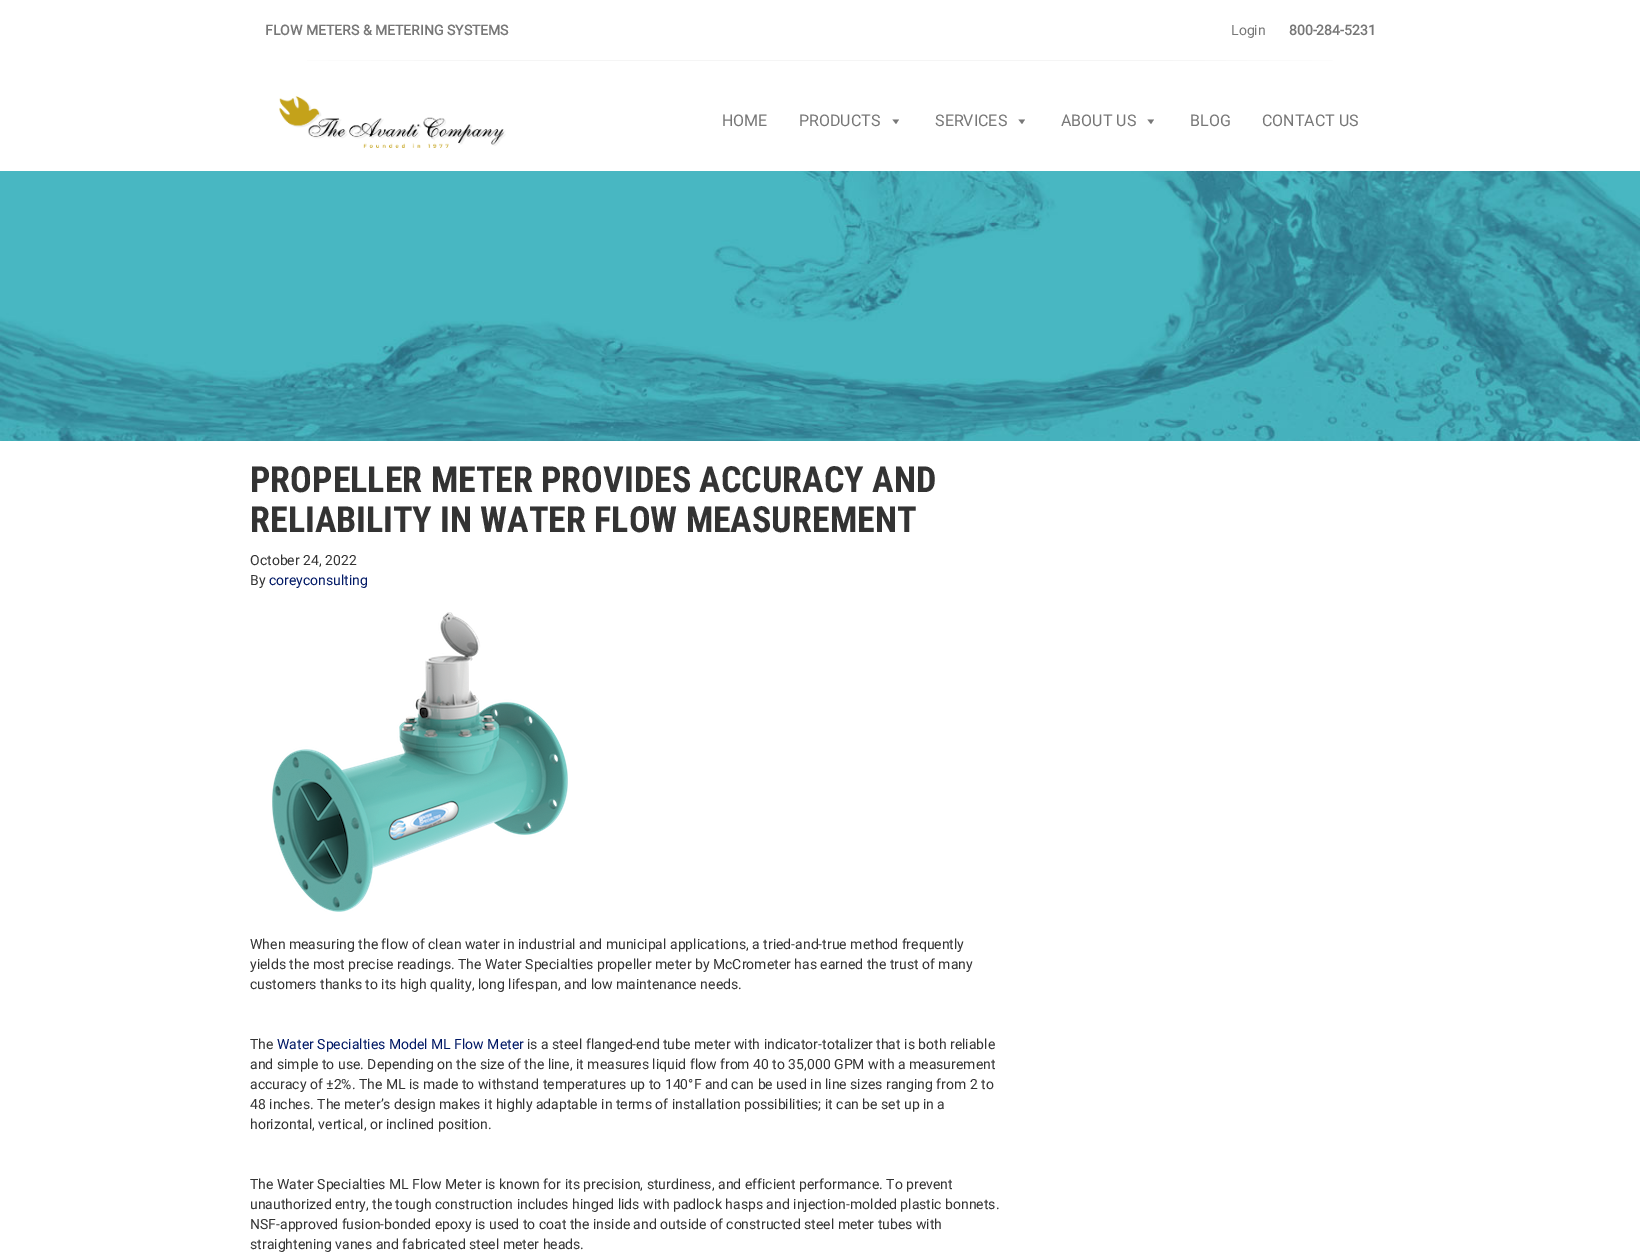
%!PS-Adobe-3.0
%%BoundingBox: 0 0 1640 1254
%%LanguageLevel: 3
%%Pages: 1
%%EndComments
%%BeginProlog
/setink { 3 { 255 div 3 1 roll } repeat setrgbcolor } def
/usefont { [ exch dup neg 0 0 3 -1 roll 0 0 ] selectfont } def
/drawtext { setink usefont moveto show } def
/fillbox { setink rectfill } def
/drawimage { 5 dict begin { /h /w /y /x /name } { exch def } forall
  gsave x y translate w h scale
  w h 8 [w 0 0 h 0 0] name (r) file false 3 colorimage grestore end } def
%%EndProlog
%%BeginSetup
<< /PageSize [1640 1254] >> setpagedevice
%%EndSetup
%%Page: 1 1
0 1254 translate 1 -1 scale
4 setmiterlimit
0 0 1640 1254 255 255 255 fillbox
(FLOW METERS & METERING SYSTEMS) 265 35 /Roboto-Bold 14 119 119 119 drawtext
(Login) 1231 35 /Roboto-Regular 14 119 119 119 drawtext
(800-284-5231) 1289 35 /Roboto-Bold 14 119 119 119 drawtext
gsave 307 60 moveto 1333 60 lineto 1333 61 lineto 307 61 lineto closepath clip newpath
<< /ShadingType 2 /ColorSpace /DeviceRGB /Coords [250 61 1390 60] /Extend [true true] /Function << /FunctionType 3 /Domain [0 1] /Functions [<< /FunctionType 2 /Domain [0 1] /C0 [1 1 1] /C1 [0.961 0.961 0.961] /N 1 >> << /FunctionType 2 /Domain [0 1] /C0 [0.961 0.961 0.961] /C1 [0.961 0.961 0.961] /N 1 >> << /FunctionType 2 /Domain [0 1] /C0 [0.961 0.961 0.961] /C1 [1 1 1] /N 1 >>] /Bounds [0.2 0.8] /Encode [0 1 0 1 0 1] >> >> shfill grestore
(assets/img1.rgb) 279 96 227 52 drawimage
(HOME) 722 126 /Roboto-Regular 16 119 119 119 drawtext
(PRODUCTS) 799 126 /Roboto-Regular 16 119 119 119 drawtext
899 119.5 moveto 896 124 lineto 892.5 119.5 lineto closepath fill
(SERVICES) 935 126 /Roboto-Regular 16 119 119 119 drawtext
1025 119.5 moveto 1022 124 lineto 1018.5 119.5 lineto closepath fill
(ABOUT US) 1061 126 /Roboto-Regular 16 119 119 119 drawtext
1154 119.5 moveto 1151 124 lineto 1147.5 119.5 lineto closepath fill
(BLOG) 1190 126 /Roboto-Regular 16 119 119 119 drawtext
(CONTACT US) 1262 126 /Roboto-Regular 16 119 119 119 drawtext
(assets/img2.rgb) 0 171 1640 270 drawimage
(PROPELLER METER PROVIDES ACCURACY AND) 250 492 /RobotoCondensed-Bold 36 51 51 51 drawtext
(RELIABILITY IN WATER FLOW MEASUREMENT) 250 532 /RobotoCondensed-Bold 36 51 51 51 drawtext
(October 24, 2022) 250 565 /Roboto-Regular 14 51 51 51 drawtext
(By) 250 585 /Roboto-Regular 14 51 51 51 drawtext
(coreyconsulting) 269 585 /Roboto-Regular 14 0 24 101 drawtext
(assets/img3.rgb) 272 612 296 300 drawimage
(When measuring the flow of clean water in industrial and municipal applications, a tried-and-true method frequently) 250 949 /Roboto-Regular 14 51 51 51 drawtext
(yields the most precise readings. The Water Specialties propeller meter by McCrometer has earned the trust of many) 250 969 /Roboto-Regular 14 51 51 51 drawtext
(customers thanks to its high quality, long lifespan, and low maintenance needs.) 250 989 /Roboto-Regular 14 51 51 51 drawtext
(The) 250 1049 /Roboto-Regular 14 51 51 51 drawtext
(Water Specialties Model ML Flow Meter) 277 1049 /Roboto-Regular 14 0 24 101 drawtext
(is a steel flanged-end tube meter with indicator-totalizer that is both reliable) 527 1049 /Roboto-Regular 14 51 51 51 drawtext
(and simple to use. Depending on the size of the line, it measures liquid flow from 40 to 35,000 GPM with a measurement) 250 1069 /Roboto-Regular 14 51 51 51 drawtext
(accuracy of ±2%. The ML is made to withstand temperatures up to 140°F and can be used in line sizes ranging from 2 to) 250 1089 /Roboto-Regular 14 51 51 51 drawtext
(48 inches. The meter’s design makes it highly adaptable in terms of installation possibilities; it can be set up in a) 250 1109 /Roboto-Regular 14 51 51 51 drawtext
(horizontal, vertical, or inclined position.) 250 1129 /Roboto-Regular 14 51 51 51 drawtext
(The Water Specialties ML Flow Meter is known for its precision, sturdiness, and efficient performance. To prevent) 250 1189 /Roboto-Regular 14 51 51 51 drawtext
(unauthorized entry, the tough construction includes hinged lids with padlock hasps and injection-molded plastic bonnets.) 250 1209 /Roboto-Regular 14 51 51 51 drawtext
(NSF-approved fusion-bonded epoxy is used to coat the inside and outside of constructed steel meter tubes with) 250 1229 /Roboto-Regular 14 51 51 51 drawtext
(straightening vanes and fabricated steel meter heads.) 250 1249 /Roboto-Regular 14 51 51 51 drawtext
showpage
%%EOF
